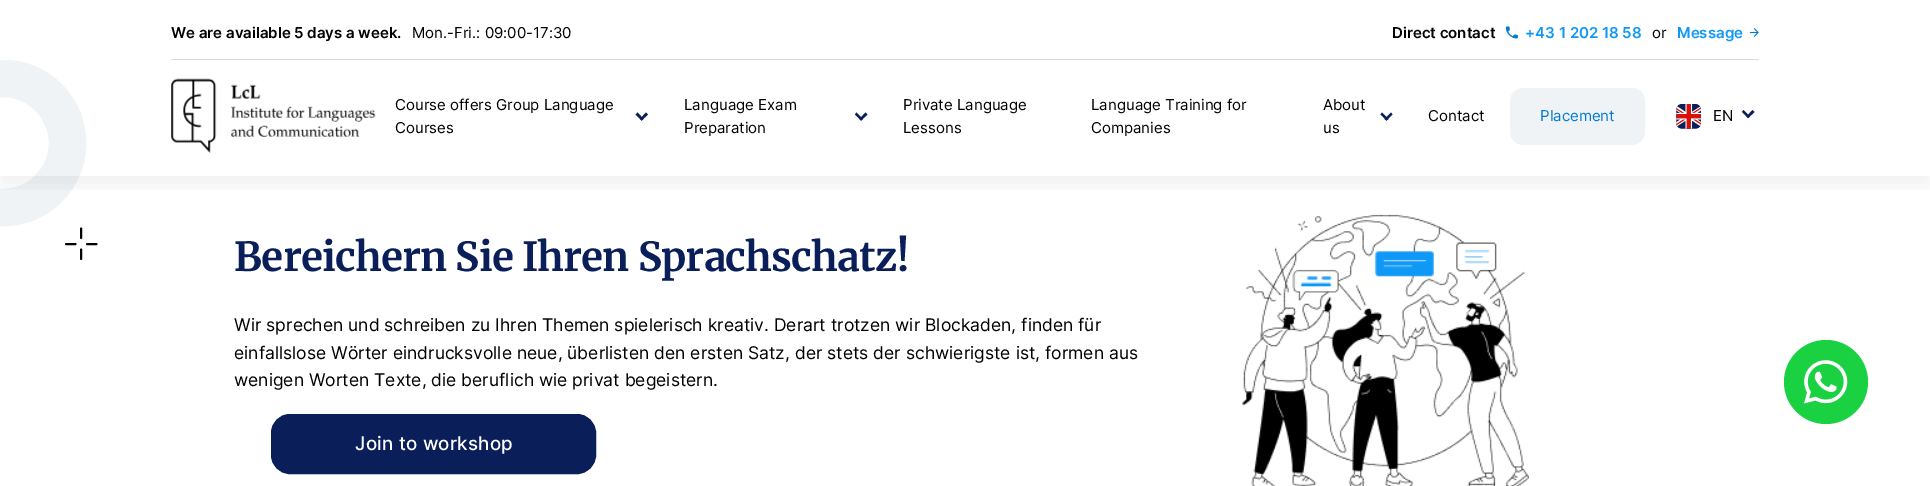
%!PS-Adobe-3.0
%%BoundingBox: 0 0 1930 486
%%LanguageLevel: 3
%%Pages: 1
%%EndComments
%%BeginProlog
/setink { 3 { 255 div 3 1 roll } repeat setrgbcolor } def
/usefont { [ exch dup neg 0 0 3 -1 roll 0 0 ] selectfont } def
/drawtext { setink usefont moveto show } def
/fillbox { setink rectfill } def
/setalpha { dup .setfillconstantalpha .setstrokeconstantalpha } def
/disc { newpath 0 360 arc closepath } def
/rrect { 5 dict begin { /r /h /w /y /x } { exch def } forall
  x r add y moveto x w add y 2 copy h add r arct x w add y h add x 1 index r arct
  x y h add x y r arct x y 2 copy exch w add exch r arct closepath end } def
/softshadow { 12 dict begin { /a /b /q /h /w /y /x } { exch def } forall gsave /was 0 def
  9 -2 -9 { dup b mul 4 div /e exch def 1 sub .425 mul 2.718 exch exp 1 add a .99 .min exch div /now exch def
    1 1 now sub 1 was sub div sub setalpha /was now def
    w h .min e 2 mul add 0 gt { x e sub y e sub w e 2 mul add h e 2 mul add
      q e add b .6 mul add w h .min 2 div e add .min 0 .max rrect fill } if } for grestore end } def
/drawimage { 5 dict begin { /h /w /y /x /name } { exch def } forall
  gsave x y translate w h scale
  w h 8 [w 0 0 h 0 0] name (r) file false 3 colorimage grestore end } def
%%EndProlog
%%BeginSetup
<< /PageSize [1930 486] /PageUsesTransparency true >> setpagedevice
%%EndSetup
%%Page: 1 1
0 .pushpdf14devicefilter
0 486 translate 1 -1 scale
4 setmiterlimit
0 0 1930 486 255 255 255 fillbox
gsave
0 60 98 200 rectclip
240 243 245 setink
37.5 setlinewidth
3 143 64.5 disc stroke
grestore
gsave
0 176 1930 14 rectclip
0 0 0 setink
0 10 1930 176 0 10 0.06 softshadow
grestore
171 59 1588 1 218 218 218 fillbox
(We are available 5 days a week.) 171 38 /Inter-SemiBold 15 0 0 0 drawtext
(Mon.-Fri.: 09:00-17:30) 412 38 /Inter-Regular 15 0 0 0 drawtext
(Direct contact) 1392 38 /Inter-SemiBold 15 0 0 0 drawtext
(assets/img1.rgb) 1505 26 13 13 drawimage
(+43 1 202 18 58) 1525 38 /Inter-SemiBold 15 16 152 247 drawtext
(or) 1652 38 /Inter-Regular 15 0 0 0 drawtext
(Message) 1677 38 /Inter-SemiBold 15 16 152 247 drawtext
(assets/img2.rgb) 1749 28 10 9 drawimage
0 0 0 setink
1.9 setlinewidth
1 setlinecap
66 244 moveto 75.5 244 lineto 87 244 moveto 96.5 244 lineto 81 228.5 moveto 81 238 lineto 81 249.5 moveto 81 259 lineto stroke
(assets/img3.rgb) 171 78 205 75 drawimage
(Course offers Group Language) 395 110 /Inter-Regular 15 0 0 0 drawtext
(Courses) 395 133 /Inter-Regular 15 0 0 0 drawtext
10 30 90 setink
646 112.5 moveto 648 114.5 lineto 641.5 120.5 lineto 640 119 lineto closepath fill
637.5 112.5 moveto 643.5 119 lineto 641.5 120.5 lineto 635.5 114.5 lineto closepath fill
(Language Exam) 684 110 /Inter-Regular 15 0 0 0 drawtext
(Preparation) 684 133 /Inter-Regular 15 0 0 0 drawtext
10 30 90 setink
865.5 112.5 moveto 867.5 114.5 lineto 861 120.5 lineto 859.5 119 lineto closepath fill
856.5 112.5 moveto 863 119 lineto 861 120.5 lineto 855 114.5 lineto closepath fill
(Private Language) 903 110 /Inter-Regular 15 0 0 0 drawtext
(Lessons) 903 133 /Inter-Regular 15 0 0 0 drawtext
(Language Training for) 1091 110 /Inter-Regular 15 0 0 0 drawtext
(Companies) 1091 133 /Inter-Regular 15 0 0 0 drawtext
(About) 1323 110 /Inter-Regular 15 0 0 0 drawtext
(us) 1323 133 /Inter-Regular 15 0 0 0 drawtext
10 30 90 setink
1391 112.5 moveto 1392.5 114.5 lineto 1386.5 120.5 lineto 1384.5 119 lineto closepath fill
1382 112.5 moveto 1388.5 119 lineto 1386.5 120.5 lineto 1380.5 114.5 lineto closepath fill
(Contact) 1428 121 /Inter-Regular 15 0 0 0 drawtext
240 243 245 setink
1510.5 88.5 134 56 12.5 rrect gsave fill grestore
1 setlinewidth
0 setlinecap
stroke
(Placement) 1540 121 /Inter-Regular 15 2 123 206 drawtext
(assets/img4.rgb) 1676 104 25 25 drawimage
(EN) 1713 121 /Inter-Regular 15 0 0 0 drawtext
10 30 90 setink
1752.5 110 moveto 1754.5 112 lineto 1748 118 lineto 1746.5 116.5 lineto closepath fill
1743.5 110 moveto 1750 116.5 lineto 1748 118 lineto 1742 112 lineto closepath fill
/Merriweather-Bold 40 usefont
234 271 moveto -0.8 0 (Bereichern Sie Ihren Sprachschatz!) ashow
(Wir sprechen und schreiben zu Ihren Themen spielerisch kreativ. Derart trotzen wir Blockaden, finden für) 234 331 /Inter-Regular 17.5 0 0 0 drawtext
(einfallslose Wörter eindrucksvolle neue, überlisten den ersten Satz, der stets der schwierigste ist, formen aus) 234 359 /Inter-Regular 17.5 0 0 0 drawtext
(wenigen Worten Texte, die beruflich wie privat begeistern.) 234 386 /Inter-Regular 17.5 0 0 0 drawtext
10 30 90 setink
271.5 414.5 324 59 18.5 rrect gsave fill grestore
stroke
/Inter-Medium 18.75 usefont
255 255 255 setink
355 450 moveto 0.25 0 (Join to workshop) ashow
(assets/img5.rgb) 1242 214 287 272 drawimage
26 209 66 setink
1826 382 42 disc fill
(assets/img6.rgb) 1804 360 44 44 drawimage
.poppdf14devicefilter showpage
%%EOF
